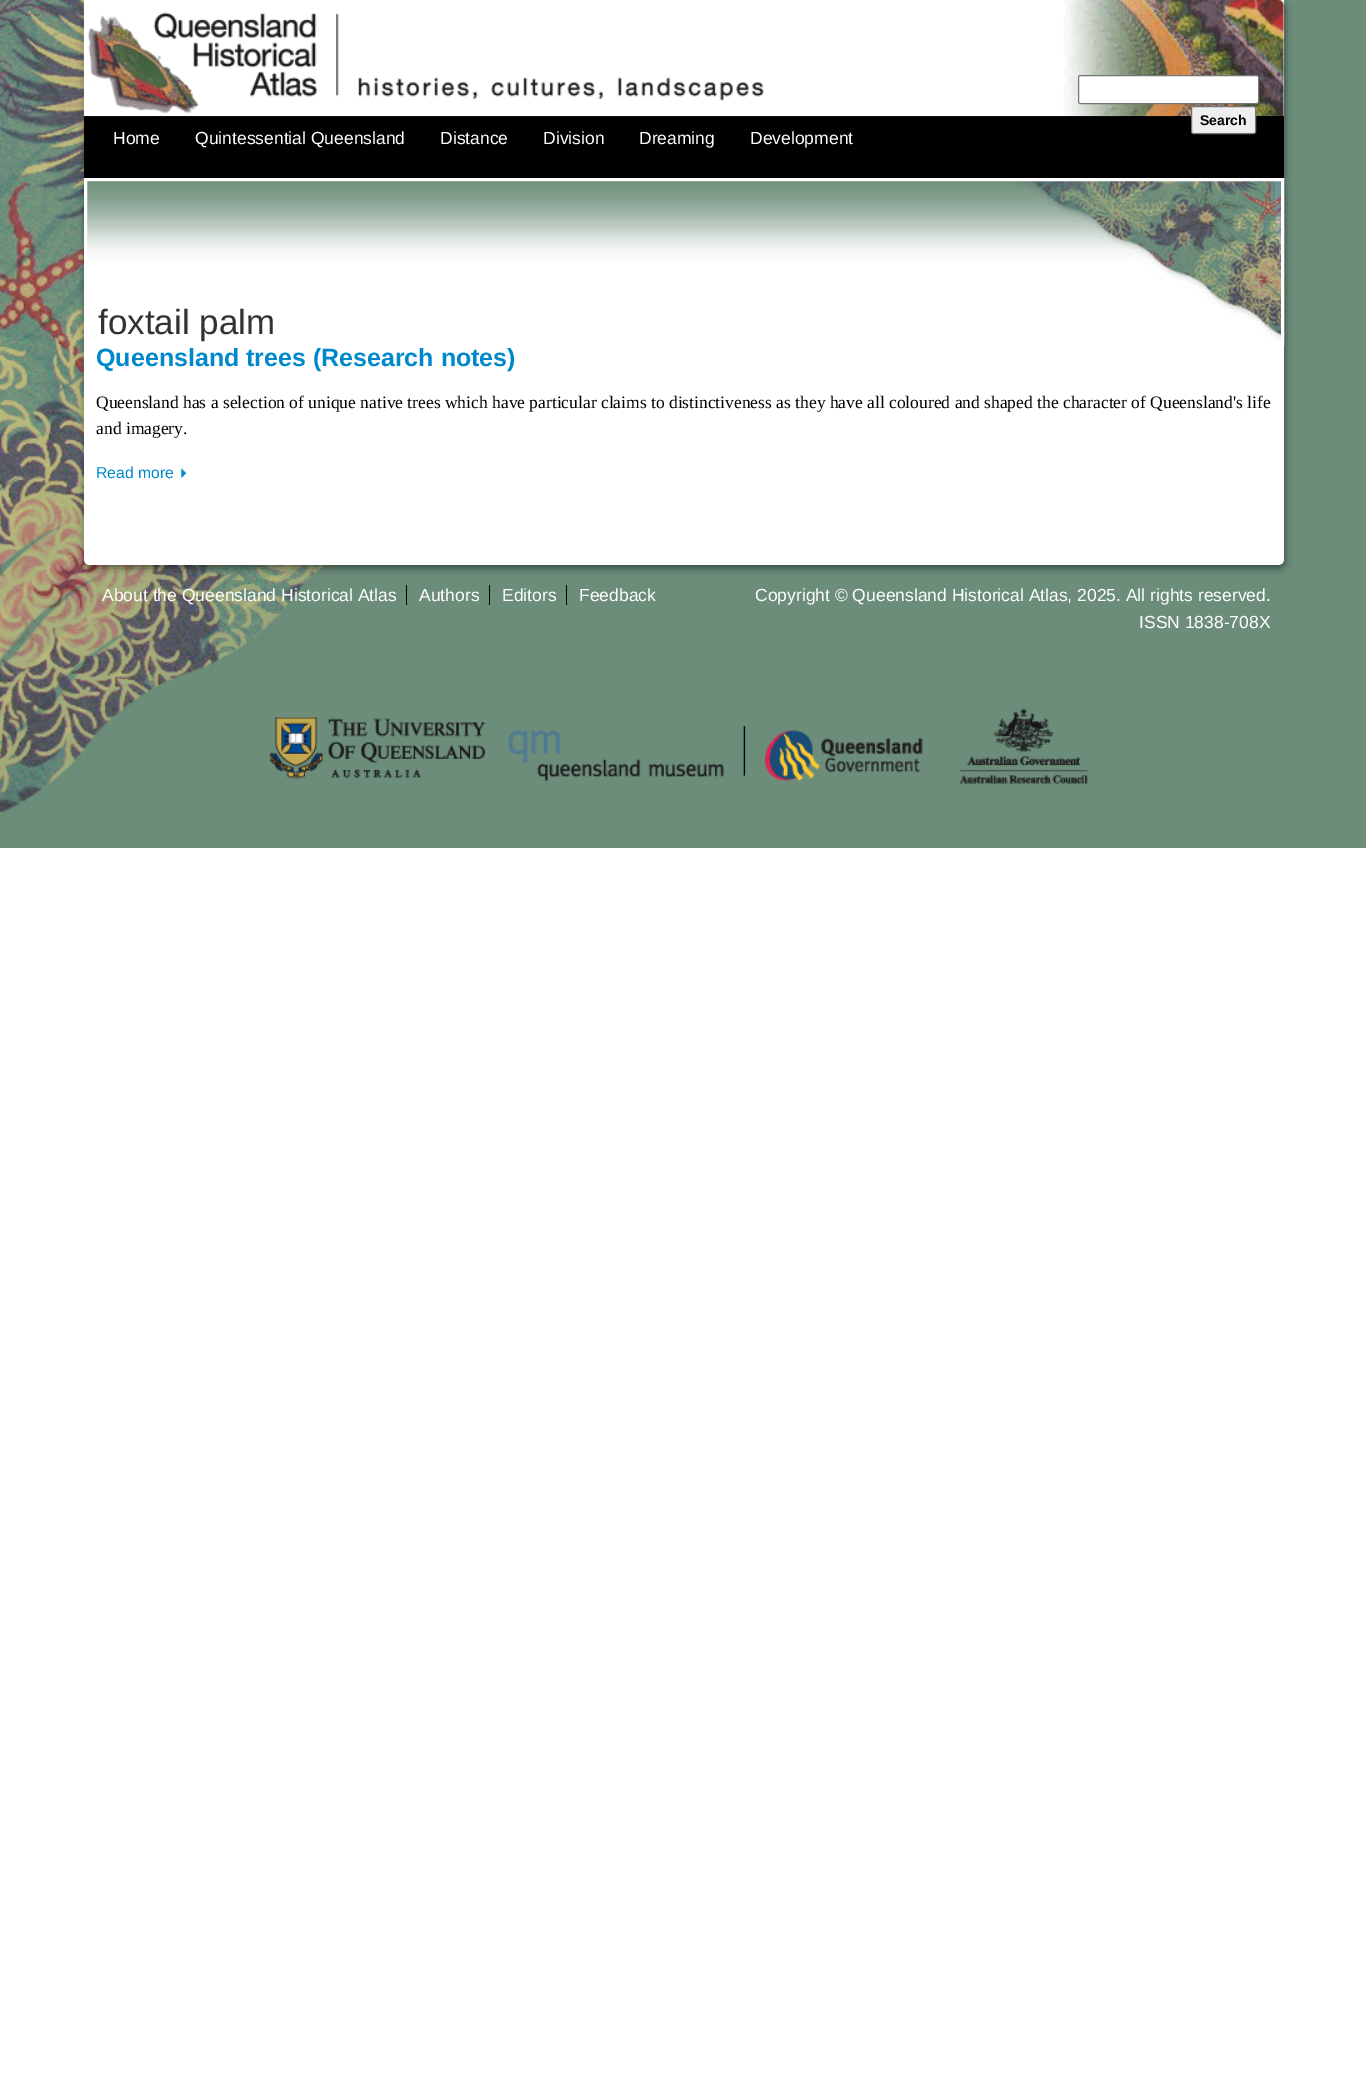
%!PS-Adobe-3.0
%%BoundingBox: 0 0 1366 2089
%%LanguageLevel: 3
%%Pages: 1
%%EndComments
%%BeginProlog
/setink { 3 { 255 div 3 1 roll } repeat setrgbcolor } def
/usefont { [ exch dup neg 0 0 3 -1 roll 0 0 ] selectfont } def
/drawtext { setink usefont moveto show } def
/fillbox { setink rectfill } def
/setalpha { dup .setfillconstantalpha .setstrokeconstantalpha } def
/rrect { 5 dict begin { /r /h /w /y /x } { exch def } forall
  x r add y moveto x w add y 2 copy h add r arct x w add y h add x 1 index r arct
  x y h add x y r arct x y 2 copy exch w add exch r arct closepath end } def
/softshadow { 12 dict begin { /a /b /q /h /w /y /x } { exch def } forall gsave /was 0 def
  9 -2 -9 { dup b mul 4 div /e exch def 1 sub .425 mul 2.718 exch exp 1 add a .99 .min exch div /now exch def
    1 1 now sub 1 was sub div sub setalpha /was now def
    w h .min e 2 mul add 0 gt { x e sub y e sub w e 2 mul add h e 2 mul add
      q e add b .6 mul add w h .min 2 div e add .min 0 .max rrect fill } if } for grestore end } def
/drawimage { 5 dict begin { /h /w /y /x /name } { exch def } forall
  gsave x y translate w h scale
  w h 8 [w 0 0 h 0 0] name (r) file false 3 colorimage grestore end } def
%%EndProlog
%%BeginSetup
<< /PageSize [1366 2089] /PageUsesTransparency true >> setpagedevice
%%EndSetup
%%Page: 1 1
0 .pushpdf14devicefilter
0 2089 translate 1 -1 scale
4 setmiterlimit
0 0 1366 2089 255 255 255 fillbox
0 0 1366 848 108 141 122 fillbox
(assets/img1.rgb) 0 0 1124 820 drawimage
0 0 0 setink
85 180 1200 388 6 4 0.5 softshadow
255 255 255 setink
84 178 moveto 1284 178 lineto 1284 559 lineto 1284 562.5 1281.5 565 1278 565 curveto 90 565 lineto 86.5 565 84 562.5 84 559 curveto closepath fill
0 0 0 setink
85 3 1200 177 6 4 0.5 softshadow
1283 0 1 116 255 255 255 fillbox
84 116 1200 62 0 0 0 fillbox
(assets/img2.rgb) 83 0 1201 117 drawimage
255 255 255 setink
1078.5 75.5 180 28 2 rrect gsave fill grestore
118 118 118 setink
stroke
239 239 239 setink
1191.5 106.5 64 27 2 rrect gsave fill grestore
118 118 118 setink
stroke
(Search) 1200 125 /LiberationSans-Bold 14 0 0 0 drawtext
(Home) 113 144 /LiberationSans-Regular 17.5 255 255 255 drawtext
(Quintessential Queensland) 195 144 /LiberationSans-Regular 17.5 255 255 255 drawtext
(Distance) 440 144 /LiberationSans-Regular 17.5 255 255 255 drawtext
(Division) 543 144 /LiberationSans-Regular 17.5 255 255 255 drawtext
(Dreaming) 639 144 /LiberationSans-Regular 17.5 255 255 255 drawtext
(Development) 750 144 /LiberationSans-Regular 17.5 255 255 255 drawtext
(assets/img3.rgb) 87 181 1194 160 drawimage
3 setlinewidth
85.5 179.5 1197 164 rectstroke
(foxtail palm) 98 334 /LiberationSans-Regular 35 51 51 51 drawtext
(Queensland trees \(Research notes\)) 96 366 /LiberationSans-Bold 25 0 136 204 drawtext
(Queensland has a selection of unique native trees which have particular claims to distinctiveness as they have all coloured and shaped the character of Queensland's life) 96 408 /LiberationSerif-Regular 17.5 0 0 0 drawtext
(and imagery.) 96 434 /LiberationSerif-Regular 17.5 0 0 0 drawtext
(Read more) 96 478 /LiberationSans-Regular 15.75 0 136 204 drawtext
(assets/img4.rgb) 181 468 6 10 drawimage
(About the Queensland Historical Atlas) 102 601 /LiberationSans-Regular 17.5 255 255 255 drawtext
406 585 1 20 0 0 0 fillbox
(Authors) 419 601 /LiberationSans-Regular 17.5 255 255 255 drawtext
489 585 1 20 0 0 0 fillbox
(Editors) 502 601 /LiberationSans-Regular 17.5 255 255 255 drawtext
566 585 1 20 0 0 0 fillbox
(Feedback) 579 601 /LiberationSans-Regular 17.5 255 255 255 drawtext
(Copyright © Queensland Historical Atlas, 2025. All rights reserved.) 755 601 /LiberationSans-Regular 17.5 255 255 255 drawtext
(ISSN 1838-708X) 1139 628 /LiberationSans-Regular 17.5 255 255 255 drawtext
(assets/img5.rgb) 269 717 217 62 drawimage
(assets/img6.rgb) 508 725 415 57 drawimage
(assets/img7.rgb) 960 708 128 76 drawimage
.poppdf14devicefilter showpage
%%EOF
